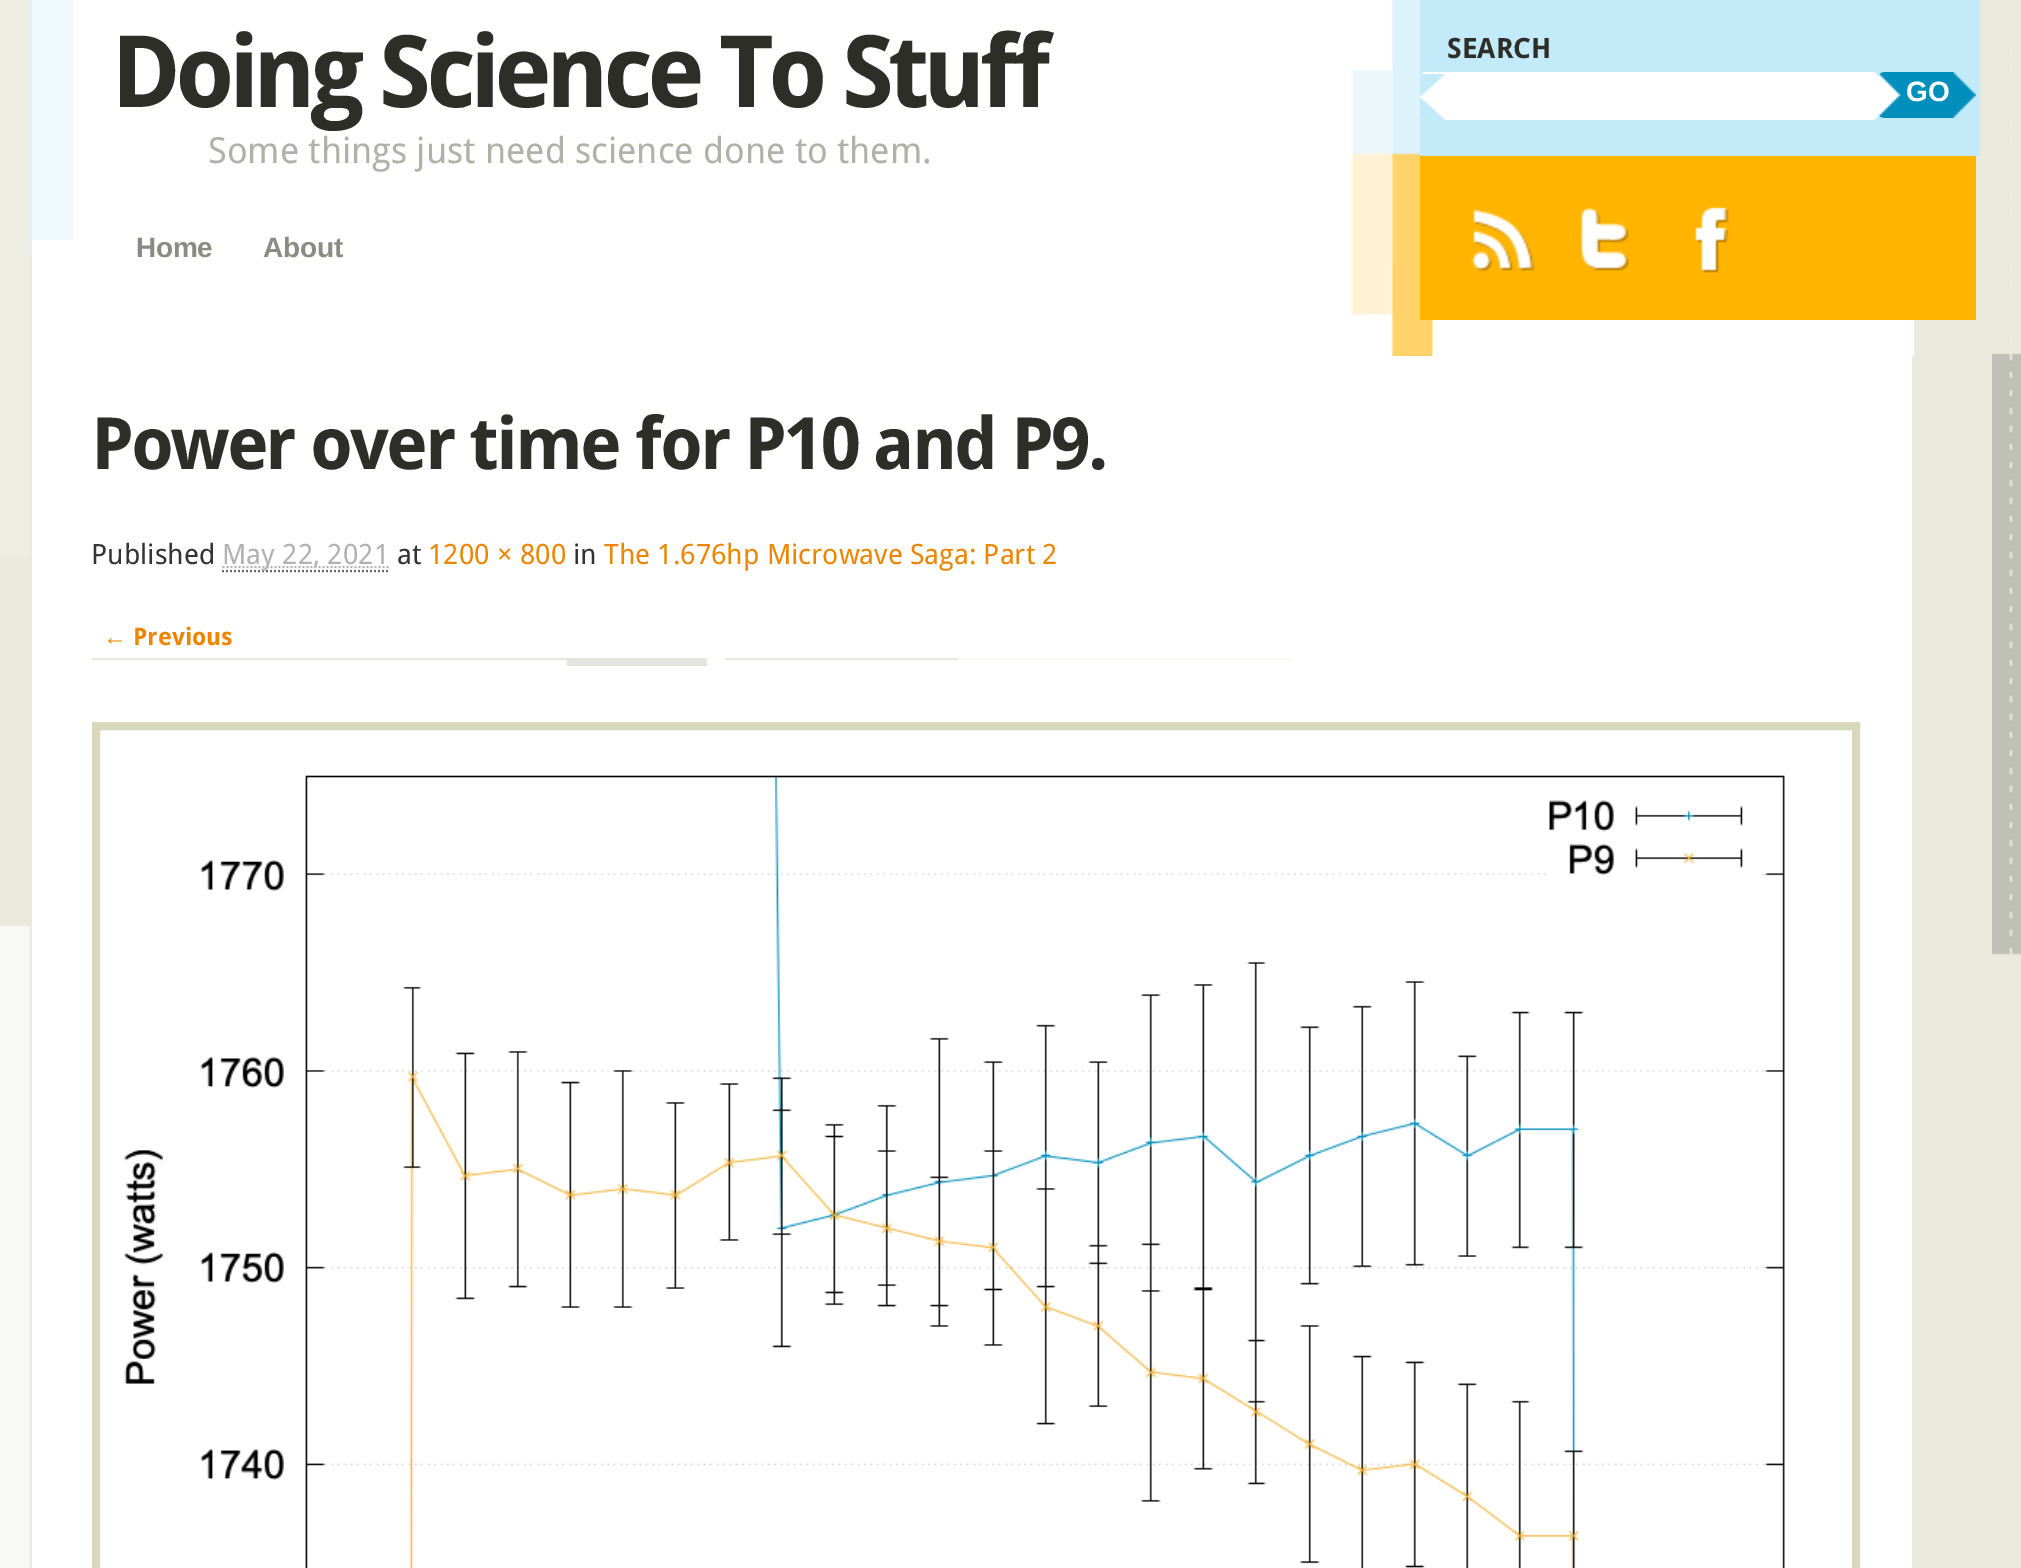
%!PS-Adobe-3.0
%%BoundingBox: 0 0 2021 1568
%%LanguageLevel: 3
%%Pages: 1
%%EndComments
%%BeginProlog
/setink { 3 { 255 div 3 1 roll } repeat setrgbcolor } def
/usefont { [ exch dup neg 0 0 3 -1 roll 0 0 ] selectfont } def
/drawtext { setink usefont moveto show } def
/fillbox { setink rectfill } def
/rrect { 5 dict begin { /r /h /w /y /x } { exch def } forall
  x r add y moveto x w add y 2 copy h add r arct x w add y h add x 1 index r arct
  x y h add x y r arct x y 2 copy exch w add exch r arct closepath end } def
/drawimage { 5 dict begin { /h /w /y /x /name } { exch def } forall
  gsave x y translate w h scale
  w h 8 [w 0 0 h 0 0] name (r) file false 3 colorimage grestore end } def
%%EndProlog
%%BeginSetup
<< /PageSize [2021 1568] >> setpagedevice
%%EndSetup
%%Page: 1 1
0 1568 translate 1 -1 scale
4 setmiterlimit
0 0 2021 1568 255 255 255 fillbox
(assets/img1.rgb) 0 0 2021 1568 drawimage
32 0 1880 1568 255 255 255 fillbox
1989 353 3 602 233 233 220 fillbox
32 0 41 240 239 249 253 fillbox
/DroidSans-Bold 100 usefont
46 46 41 setink
111 107 moveto -6 0 (Doing Science To Stuff) ashow
(Some things just need science done to them.) 208 163 /DroidSans-Regular 36 176 177 168 drawtext
/LiberationSans-Bold 28 usefont
138 139 130 setink
136 257 moveto -0.25 0 (Home) ashow
263 257 moveto -0.25 0 (About) ashow
(assets/img2.rgb) 1351 0 563 356 drawimage
1420 0 560 156 195 234 248 fillbox
(SEARCH) 1447 58 /DroidSans-Bold 28 46 46 41 drawtext
255 255 255 setink
1420 72 458 48 6 rrect fill
(assets/img3.rgb) 1420 74 24 46 drawimage
(assets/img4.rgb) 1878 72 98 46 drawimage
(GO) 1906 101 /LiberationSans-Bold 28 255 255 255 drawtext
1420 156 556 164 255 180 0 fillbox
(assets/img5.rgb) 1471 209 64 64 drawimage
(assets/img6.rgb) 1579 207 50 64 drawimage
(assets/img7.rgb) 1695 207 34 66 drawimage
(assets/img8.rgb) 92 658 1200 8 drawimage
/DroidSans-Bold 72 usefont
46 46 41 setink
91 469 moveto -2.9 0 (Power over time for P10 and P9.) ashow
(Published) 91 564 /DroidSans-Regular 28 51 51 51 drawtext
102 102 102 setink
2 setlinewidth
[2 2] 0 setdash
222 571 moveto 390 571 lineto stroke
177 177 177 setink
222.5 567 moveto 389.5 567 lineto stroke
(May 22, 2021) 222 564 /DroidSans-Regular 28 177 177 177 drawtext
(at) 397 564 /DroidSans-Regular 28 51 51 51 drawtext
(1200 × 800) 428 564 /DroidSans-Regular 28 236 133 0 drawtext
(in) 573 564 /DroidSans-Regular 28 51 51 51 drawtext
(The 1.676hp Microwave Saga: Part 2) 604 564 /DroidSans-Regular 28 236 133 0 drawtext
(←) 103 645 /LiberationSans-Bold 24 236 133 0 drawtext
(Previous) 133 645 /DroidSans-Bold 24 236 133 0 drawtext
217 216 187 setink
8 setlinewidth
[] 0 setdash
96 726 1760 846 rectstroke
(assets/img9.rgb) 124 775 1661 793 drawimage
showpage
%%EOF
